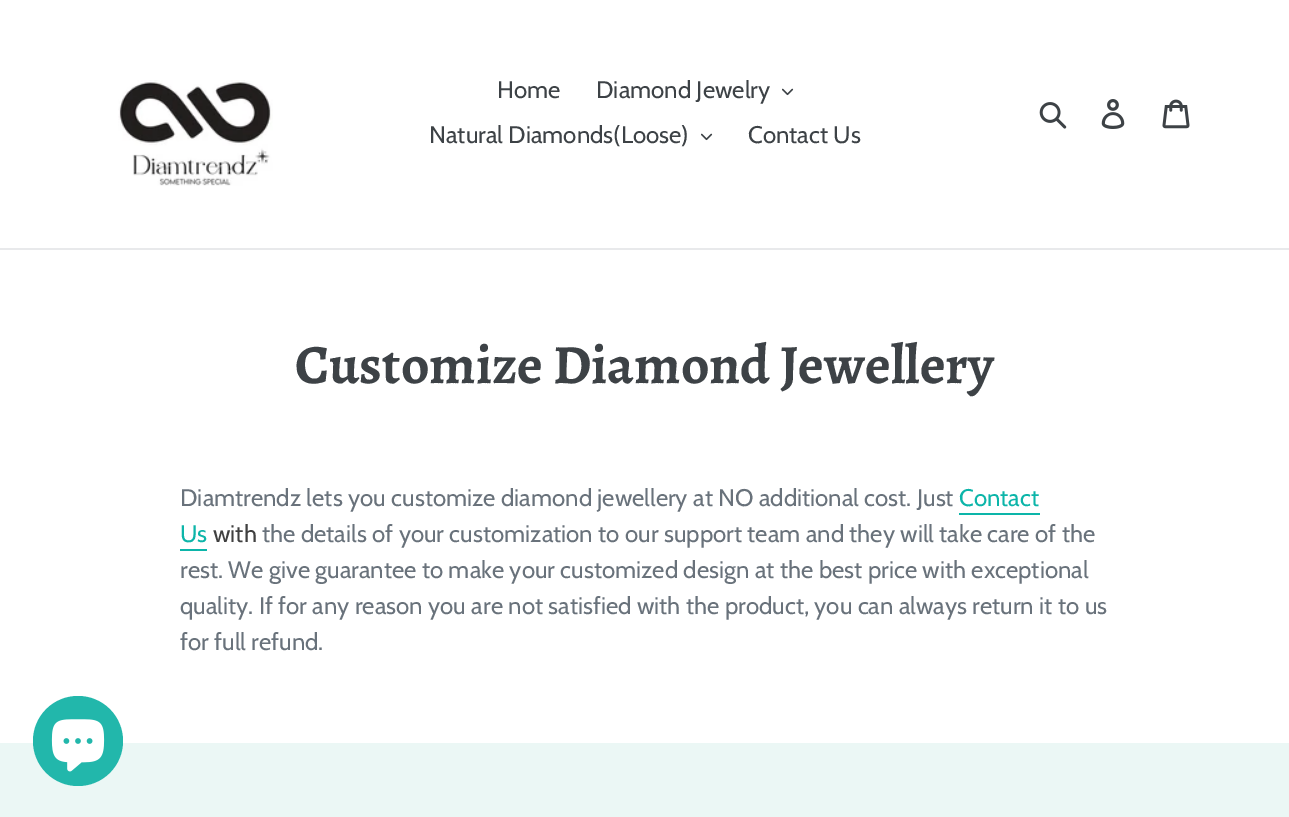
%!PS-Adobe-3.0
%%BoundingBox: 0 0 1289 817
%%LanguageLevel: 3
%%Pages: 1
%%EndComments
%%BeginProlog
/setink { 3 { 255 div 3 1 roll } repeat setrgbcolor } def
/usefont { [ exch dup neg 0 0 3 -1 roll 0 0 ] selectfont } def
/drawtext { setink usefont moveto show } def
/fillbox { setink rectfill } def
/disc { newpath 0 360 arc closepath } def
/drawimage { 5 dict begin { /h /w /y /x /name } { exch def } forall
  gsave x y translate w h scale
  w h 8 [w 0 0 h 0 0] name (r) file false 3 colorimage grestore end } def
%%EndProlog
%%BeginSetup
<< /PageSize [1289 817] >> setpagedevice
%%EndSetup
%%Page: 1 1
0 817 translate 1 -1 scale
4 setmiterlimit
0 0 1289 817 255 255 255 fillbox
0 248 1289 2 232 233 235 fillbox
(assets/img1.rgb) 118 80 155 106 drawimage
(Home) 497 98 /Cabin-Regular 24 61 66 70 drawtext
(Diamond Jewelry) 596 98 /Cabin-Regular 24 61 66 70 drawtext
(assets/img2.rgb) 782 88 12 8 drawimage
(Natural Diamonds\(Loose\)) 429 143 /Cabin-Regular 24 61 66 70 drawtext
(assets/img2.rgb) 701 133 12 8 drawimage
(Contact Us) 748 143 /Cabin-Regular 24 61 66 70 drawtext
(assets/img3.rgb) 1039 102 28 27 drawimage
(assets/img4.rgb) 1101 99 24 30 drawimage
(assets/img5.rgb) 1162 99 28 30 drawimage
(Customize Diamond Jewellery) 295 383 /Alegreya-Bold 55.5 61 66 70 drawtext
(Diamtrendz lets you customize diamond jewellery at NO additional cost. Just) 180 506 /Cabin-Regular 24 105 114 123 drawtext
(Contact) 959 506 /Cabin-Regular 24 12 181 169 drawtext
959 513 81 2 12 181 169 fillbox
(Us) 180 542 /Cabin-Regular 24 12 181 169 drawtext
180 549 27 2 12 181 169 fillbox
(with) 213 542 /Cabin-Regular 24 64 64 64 drawtext
(the details of your customization to our support team and they will take care of the) 262 542 /Cabin-Regular 24 105 114 123 drawtext
(rest. We give guarantee to make your customized design at the best price with exceptional) 180 578 /Cabin-Regular 24 105 114 123 drawtext
(quality. If for any reason you are not satisfied with the product, you can always return it to us) 180 614 /Cabin-Regular 24 105 114 123 drawtext
(for full refund.) 180 650 /Cabin-Regular 24 105 114 123 drawtext
0 743 1289 74 235 247 245 fillbox
34 183 171 setink
78 741 45 disc fill
(assets/img6.rgb) 51 719 54 53 drawimage
showpage
%%EOF
